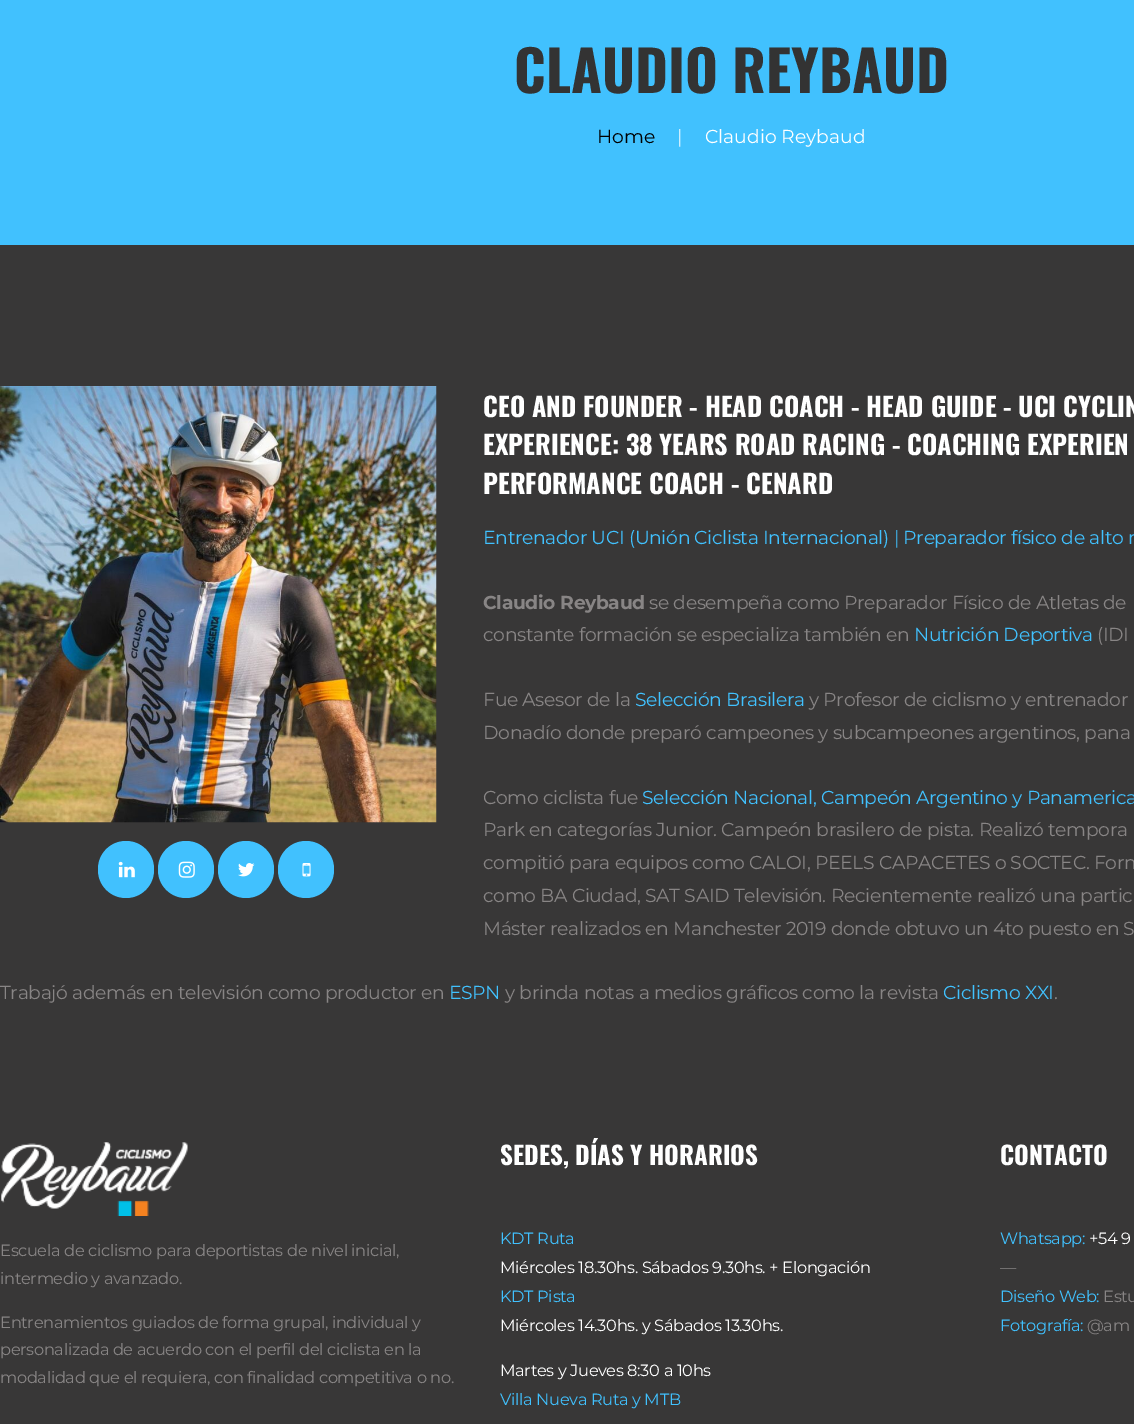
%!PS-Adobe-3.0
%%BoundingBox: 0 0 1134 1424
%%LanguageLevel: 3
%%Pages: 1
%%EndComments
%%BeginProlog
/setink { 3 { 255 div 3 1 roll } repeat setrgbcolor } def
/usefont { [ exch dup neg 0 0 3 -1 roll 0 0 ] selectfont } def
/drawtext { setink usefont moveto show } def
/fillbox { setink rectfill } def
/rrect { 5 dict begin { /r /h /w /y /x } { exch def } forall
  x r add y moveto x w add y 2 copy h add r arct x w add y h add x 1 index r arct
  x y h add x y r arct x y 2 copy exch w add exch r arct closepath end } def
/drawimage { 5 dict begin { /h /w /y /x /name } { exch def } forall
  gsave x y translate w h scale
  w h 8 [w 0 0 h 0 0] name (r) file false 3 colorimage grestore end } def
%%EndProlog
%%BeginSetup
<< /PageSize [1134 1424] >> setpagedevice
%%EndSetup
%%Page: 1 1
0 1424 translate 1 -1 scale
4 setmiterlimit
0 0 1134 1424 56 55 55 fillbox
0 0 1134 245 65 193 254 fillbox
(CLAUDIO REYBAUD) 514 93 /Oswald-Bold 56.25 51 51 51 drawtext
(Home) 597 143 /Montserrat-Regular 18.75 0 0 0 drawtext
(|) 677 143 /Montserrat-Regular 18.75 255 255 255 drawtext
(Claudio Reybaud) 705 143 /Montserrat-Regular 18.75 255 255 255 drawtext
(assets/img1.rgb) 0 386 437 437 drawimage
65 193 254 setink
98 841 56 57 28 rrect fill
(assets/img2.rgb) 118 861 17 17 drawimage
158 841 56 57 28 rrect fill
(assets/img3.rgb) 178 861 17 17 drawimage
218 841 56 57 28 rrect fill
(assets/img4.rgb) 238 863 17 14 drawimage
278 841 56 57 28 rrect fill
(assets/img5.rgb) 302 863 9 14 drawimage
(CEO AND FOUNDER - HEAD COACH - HEAD GUIDE - UCI CYCLIN) 483 417 /Oswald-Bold 26.25 255 255 255 drawtext
(EXPERIENCE: 38 YEARS ROAD RACING - COACHING EXPERIEN) 483 455 /Oswald-Bold 26.25 255 255 255 drawtext
(PERFORMANCE COACH - CENARD) 483 494 /Oswald-Bold 26.25 255 255 255 drawtext
/Montserrat-Regular 18.75 usefont
65 193 254 setink
483 544 moveto -0.35 0 (Entrenador UCI \(Unión Ciclista Internacional\) | Preparador físico de alto r) ashow
/Montserrat-Bold 18.75 usefont
136 133 133 setink
483 609 moveto -0.35 0 (Claudio Reybaud) ashow
/Montserrat-Regular 18.75 usefont
649 609 moveto -0.35 0 (se desempeña como Preparador Físico de Atletas de) ashow
483 641 moveto -0.35 0 (constante formación se especializa también en) ashow
65 193 254 setink
914 641 moveto -0.35 0 (Nutrición Deportiva) ashow
136 133 133 setink
1097 641 moveto -0.35 0 (\(IDI) ashow
483 706 moveto -0.35 0 (Fue Asesor de la) ashow
65 193 254 setink
635 706 moveto -0.35 0 (Selección Brasilera) ashow
136 133 133 setink
809 706 moveto -0.35 0 (y Profesor de ciclismo y entrenador) ashow
483 739 moveto -0.35 0 (Donadío donde preparó campeones y subcampeones argentinos, pana) ashow
483 804 moveto -0.35 0 (Como ciclista fue) ashow
65 193 254 setink
642 804 moveto -0.35 0 (Selección Nacional, Campeón Argentino y Panamerica) ashow
136 133 133 setink
483 836 moveto -0.35 0 (Park en categorías Junior. Campeón brasilero de pista. Realizó tempora) ashow
483 869 moveto -0.35 0 (compitió para equipos como CALOI, PEELS CAPACETES o SOCTEC. Form) ashow
483 902 moveto -0.35 0 (como BA Ciudad, SAT SAID Televisión. Recientemente realizó una partic) ashow
483 935 moveto -0.35 0 (Máster realizados en Manchester 2019 donde obtuvo un 4to puesto en S) ashow
0 999 moveto -0.35 0 (Trabajó además en televisión como productor en) ashow
65 193 254 setink
449 999 moveto -0.35 0 (ESPN) ashow
136 133 133 setink
505 999 moveto -0.35 0 (y brinda notas a medios gráficos como la revista) ashow
65 193 254 setink
943 999 moveto -0.35 0 (Ciclismo XXI) ashow
136 133 133 setink
1054 999 moveto -0.35 0 (.) ashow
(assets/img6.rgb) 1 1142 187 74 drawimage
/Montserrat-Regular 16.25 usefont
0 1256 moveto -0.35 0 (Escuela de ciclismo para deportistas de nivel inicial,) ashow
0 1284 moveto -0.35 0 (intermedio y avanzado.) ashow
0 1328 moveto -0.35 0 (Entrenamientos guiados de forma grupal, individual y) ashow
0 1355 moveto -0.35 0 (personalizada de acuerdo con el perfil del ciclista en la) ashow
0 1383 moveto -0.35 0 (modalidad que el requiera, con finalidad competitiva o no.) ashow
(SEDES, DÍAS Y HORARIOS) 500 1165 /Oswald-Bold 25 255 255 255 drawtext
/Montserrat-Regular 16.25 usefont
65 193 254 setink
500 1244 moveto -0.35 0 (KDT Ruta) ashow
255 255 255 setink
500 1273 moveto -0.35 0 (Miércoles 18.30hs. Sábados 9.30hs. + Elongación) ashow
65 193 254 setink
500 1302 moveto -0.35 0 (KDT Pista) ashow
255 255 255 setink
500 1331 moveto -0.35 0 (Miércoles 14.30hs. y Sábados 13.30hs.) ashow
500 1376 moveto -0.35 0 (Martes y Jueves 8:30 a 10hs) ashow
65 193 254 setink
500 1405 moveto -0.35 0 (Villa Nueva Ruta y MTB) ashow
(CONTACTO) 1000 1165 /Oswald-Bold 25 255 255 255 drawtext
/Montserrat-Regular 16.25 usefont
65 193 254 setink
1000 1244 moveto -0.35 0 (Whatsapp:) ashow
255 255 255 setink
1089 1244 moveto -0.35 0 (+54 9) ashow
136 133 133 setink
1000 1273 moveto -0.35 0 (—) ashow
65 193 254 setink
1000 1302 moveto -0.35 0 (Diseño Web:) ashow
136 133 133 setink
1103 1302 moveto -0.35 0 (Estu) ashow
65 193 254 setink
1000 1331 moveto -0.35 0 (Fotografía:) ashow
136 133 133 setink
1087 1331 moveto -0.35 0 (@am) ashow
showpage
%%EOF
